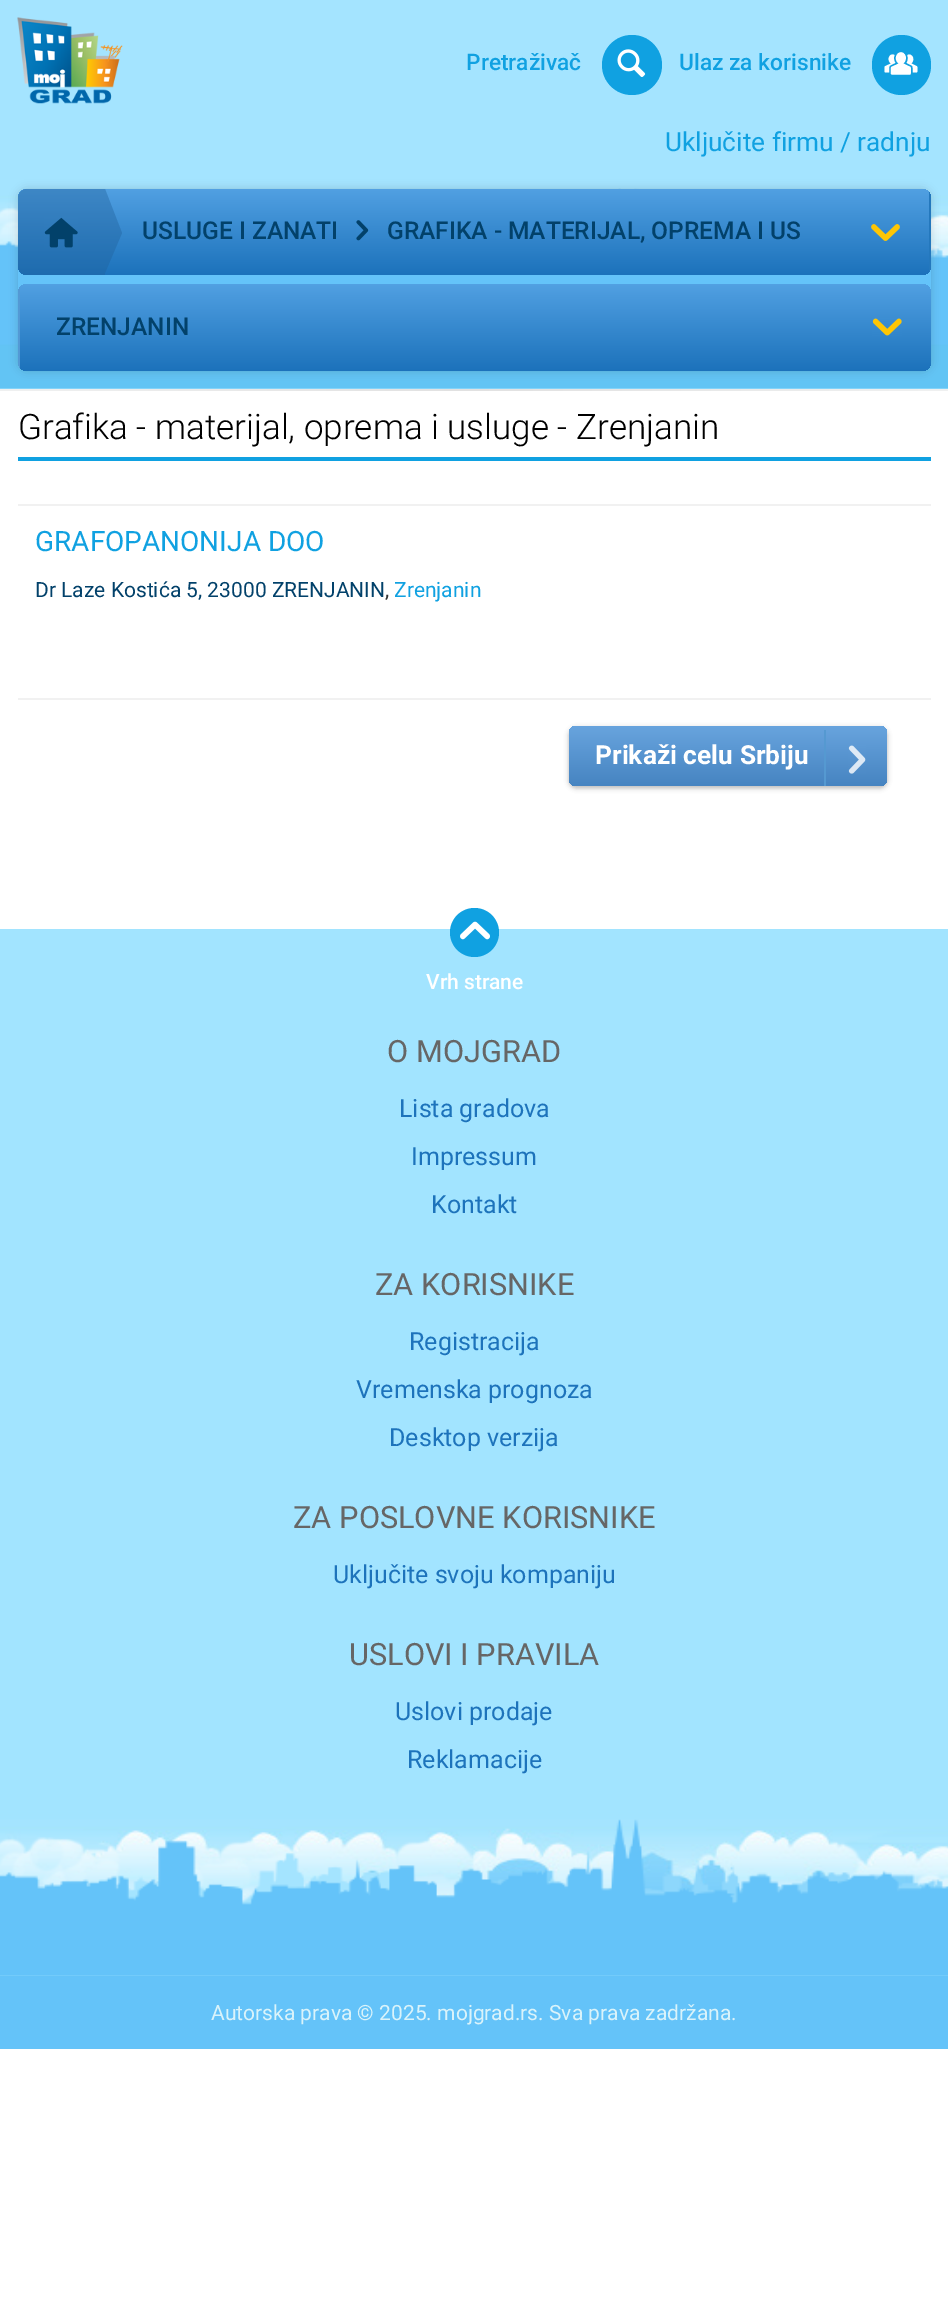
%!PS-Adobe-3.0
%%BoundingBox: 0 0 948 2319
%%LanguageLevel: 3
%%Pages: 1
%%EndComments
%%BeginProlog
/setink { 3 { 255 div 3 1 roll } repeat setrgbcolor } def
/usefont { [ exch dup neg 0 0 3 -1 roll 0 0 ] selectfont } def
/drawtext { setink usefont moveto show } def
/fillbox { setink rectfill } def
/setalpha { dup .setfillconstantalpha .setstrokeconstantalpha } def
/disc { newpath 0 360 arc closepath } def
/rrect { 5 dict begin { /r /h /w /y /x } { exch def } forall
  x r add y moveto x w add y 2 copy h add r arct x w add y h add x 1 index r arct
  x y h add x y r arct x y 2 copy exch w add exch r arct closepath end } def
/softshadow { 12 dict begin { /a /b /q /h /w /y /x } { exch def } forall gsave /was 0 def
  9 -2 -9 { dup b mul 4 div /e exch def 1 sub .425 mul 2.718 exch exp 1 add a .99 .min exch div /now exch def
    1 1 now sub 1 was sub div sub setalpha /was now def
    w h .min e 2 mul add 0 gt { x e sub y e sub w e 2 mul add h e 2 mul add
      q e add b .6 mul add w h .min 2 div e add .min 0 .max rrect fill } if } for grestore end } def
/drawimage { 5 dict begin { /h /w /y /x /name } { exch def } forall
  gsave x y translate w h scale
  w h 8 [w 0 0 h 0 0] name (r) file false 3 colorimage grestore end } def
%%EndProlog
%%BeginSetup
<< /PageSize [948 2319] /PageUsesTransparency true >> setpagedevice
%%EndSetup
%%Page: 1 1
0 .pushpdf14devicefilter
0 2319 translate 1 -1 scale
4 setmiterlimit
0 0 948 2319 255 255 255 fillbox
0 0 948 389 164 228 255 fillbox
(assets/img1.rgb) 0 188 948 201 drawimage
(assets/img2.rgb) 17 17 106 87 drawimage
(Pretraživač) 466 70 /Roboto-Medium 22.75 16 161 225 drawtext
632 65 30 disc fill
(assets/img3.rgb) 617 49 29 28 drawimage
(Ulaz za korisnike) 679 70 /Roboto-Medium 22.75 16 161 225 drawtext
872 35 59 60 29.5 rrect fill
(&) 884 79 /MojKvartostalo-Regular 34 255 255 255 drawtext
(Uključite firmu / radnju) 665 151 /Roboto-Regular 26.25 16 161 225 drawtext
gsave
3 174 moveto 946 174 lineto 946 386 lineto 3 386 lineto closepath 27 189 moveto 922 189 lineto 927 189 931 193 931 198 curveto 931 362 lineto 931 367 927 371 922 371 curveto 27 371 lineto 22 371 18 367 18 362 curveto 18 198 lineto 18 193 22 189 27 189 curveto closepath eoclip newpath
0 0 0 setink
18 189 913 182 9 4.5 0.15 softshadow
grestore
gsave 18 189 913 86 9 rrect clip newpath
<< /ShadingType 2 /ColorSpace /DeviceRGB /Coords [473 275 473 189] /Extend [true true] /Function << /FunctionType 2 /Domain [0 1] /C0 [0.11 0.447 0.733] /C1 [0.318 0.627 0.886] /N 1 >> >> shfill grestore
gsave
18 189 913 182 9 rrect clip newpath
18 189 913 86 9 rrect clip newpath
929 189 2 86 36 120 189 fillbox
grestore
0.4 setalpha
32 97 155 setink
27 189 moveto 105 189 lineto 105 275 lineto 27 275 lineto 22 275 18 271 18 266 curveto 18 198 lineto 18 193 22 189 27 189 curveto closepath fill
1 setalpha
(assets/img4.rgb) 44 217 34 31 drawimage
0.4 setalpha
105 273 moveto 105 189 lineto 122 233 lineto closepath fill
1 setalpha
(USLUGE I ZANATI) 142 239 /Roboto-Medium 24.5 2 65 106 drawtext
(assets/img5.rgb) 356 220 13 21 drawimage
(GRAFIKA - MATERIJAL, OPREMA I US) 387 239 /Roboto-Medium 24.5 2 65 106 drawtext
(assets/img6.rgb) 871 224 29 17 drawimage
gsave 18 284 913 87 9 rrect clip newpath
<< /ShadingType 2 /ColorSpace /DeviceRGB /Coords [475 371 475 284] /Extend [true true] /Function << /FunctionType 2 /Domain [0 1] /C0 [0.11 0.447 0.733] /C1 [0.318 0.627 0.886] /N 1 >> >> shfill grestore
gsave
18 189 913 182 9 rrect clip newpath
18 284 913 87 9 rrect clip newpath
18 284 2 87 83 153 213 fillbox
grestore
(ZRENJANIN) 56 335 /Roboto-Medium 24.5 2 65 106 drawtext
(assets/img7.rgb) 872 318 30 18 drawimage
gsave 0 389 moveto 948 389 lineto 948 391 lineto 0 391 lineto closepath clip newpath
<< /ShadingType 2 /ColorSpace /DeviceRGB /Coords [0 389 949 389] /Extend [true true] /Function << /FunctionType 3 /Domain [0 1] /Functions [<< /FunctionType 2 /Domain [0 1] /C0 [0.941 0.945 0.945] /C1 [0.882 0.882 0.882] /N 1 >> << /FunctionType 2 /Domain [0 1] /C0 [0.882 0.882 0.882] /C1 [0.941 0.945 0.945] /N 1 >>] /Bounds [0.5] /Encode [0 1 0 1] >> >> shfill grestore
18 457 913 4 16 161 225 fillbox
(Grafika - materijal, oprema i usluge - Zrenjanin) 18 439 /Roboto-Light 35 0 0 0 drawtext
18 698 913 2 241 241 241 fillbox
18 504 913 2 241 241 241 fillbox
(GRAFOPANONIJA DOO) 35 551 /Roboto-Regular 28 16 161 225 drawtext
(Dr Laze Kostića 5, 23000 ZRENJANIN) 35 597 /Roboto-Regular 21 2 65 106 drawtext
(,) 385 597 /Roboto-Regular 21 51 51 51 drawtext
(Zrenjanin) 394 597 /Roboto-Regular 21 16 161 225 drawtext
51 51 51 setink
569 728 318 60 7 2.5 0.35 softshadow
gsave 569 726 318 60 7 rrect clip newpath
<< /ShadingType 2 /ColorSpace /DeviceRGB /Coords [728 726 728 786] /Extend [true true] /Function << /FunctionType 2 /Domain [0 1] /C0 [0.408 0.643 0.871] /C1 [0.275 0.518 0.757] /N 1 >> >> shfill grestore
(Prikaži celu Srbiju) 595 764 /Roboto-Bold 26.25 255 255 255 drawtext
824 730 2 56 85 153 209 fillbox
(assets/img8.rgb) 848 745 18 29 drawimage
0 929 948 1047 162 228 255 fillbox
16 161 225 setink
474.5 932.5 24.5 disc fill
(assets/img9.rgb) 460 921 30 19 drawimage
(Vrh strane) 426 989 /Roboto-Medium 21 255 255 255 drawtext
(assets/img10.rgb) 0 1819 948 157 drawimage
(O MOJGRAD) 387 1062 /Roboto-Regular 30.75 102 102 102 drawtext
(Lista gradova) 399 1117 /Roboto-Regular 25 29 115 187 drawtext
(Impressum) 411 1165 /Roboto-Regular 25 29 115 187 drawtext
(Kontakt) 431 1213 /Roboto-Regular 25 29 115 187 drawtext
(ZA KORISNIKE) 375 1295 /Roboto-Regular 30.75 102 102 102 drawtext
(Registracija) 409 1350 /Roboto-Regular 25 29 115 187 drawtext
(Vremenska prognoza) 356 1398 /Roboto-Regular 25 29 115 187 drawtext
(Desktop verzija) 389 1446 /Roboto-Regular 25 29 115 187 drawtext
(ZA POSLOVNE KORISNIKE) 293 1528 /Roboto-Regular 30.75 102 102 102 drawtext
(Uključite svoju kompaniju) 333 1583 /Roboto-Regular 25 29 115 187 drawtext
(USLOVI I PRAVILA) 349 1665 /Roboto-Regular 30.75 102 102 102 drawtext
(Uslovi prodaje) 395 1720 /Roboto-Regular 25 29 115 187 drawtext
(Reklamacije) 407 1768 /Roboto-Regular 25 29 115 187 drawtext
0 1976 948 73 100 195 249 fillbox
(Autorska prava © 2025. mojgrad.rs. Sva prava zadržana.) 211 2020 /Roboto-Regular 21 218 243 250 drawtext
.poppdf14devicefilter showpage
%%EOF
